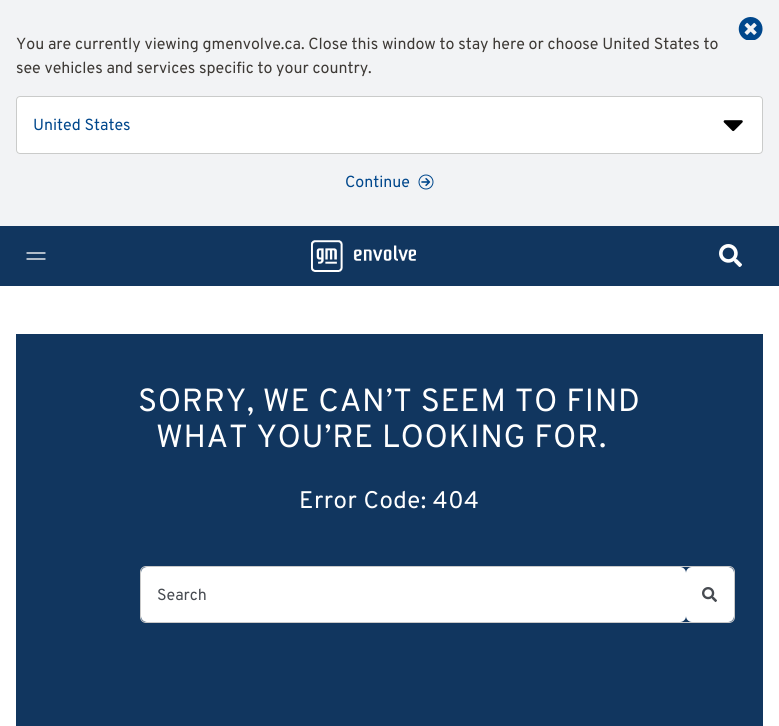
import math
import cairo



def draw_spaced(context, x, y, s, letter, word):
    context.move_to(x, y)
    for ch in s:
        context.show_text(ch)
        context.rel_move_to(letter + word * (ch == ' '), 0)


def rounded_rect(context, x, y, w, h, r):
    context.new_sub_path()
    for i, (u, v) in enumerate([(x + w - r, y + h - r), (x + r, y + h - r), (x + r, y + r), (x + w - r, y + r)]):
        context.arc(u, v, r, i * math.pi / 2, (i + 1) * math.pi / 2)
    context.close_path()


def draw_image(context, path, x, y, w, h):
    context.save()
    context.set_source_surface(cairo.ImageSurface.create_from_png(path), x, y)
    context.rectangle(x, y, w, h)
    context.fill()
    context.restore()


def draw(context):
    context.set_source_rgb(1, 1, 1)
    context.paint()
    context.set_source_rgb(242 / 255, 243 / 255, 245 / 255)
    context.rectangle(0, 0, 779, 226)
    context.fill()
    draw_image(context, "images/1.png", 738, 17, 25, 23)
    context.set_source_rgb(1, 1, 1)
    rounded_rect(context, 16, 96, 747, 58, 4)
    context.fill()
    draw_image(context, "images/2.png", 723, 120, 20, 12)
    rounded_rect(context, 16.5, 96.5, 746, 57, 3.5)
    context.set_source_rgb(202 / 255, 203 / 255, 202 / 255)
    context.set_line_width(1)
    context.stroke()
    draw_image(context, "images/3.png", 418, 174, 16, 16)
    context.set_source_rgb(17 / 255, 54 / 255, 95 / 255)
    context.rectangle(0, 226, 779, 60)
    context.fill()
    context.new_path()
    context.move_to(27, 259)
    context.line_to(45, 259)
    context.move_to(27, 253)
    context.line_to(45, 253)
    context.set_source_rgb(1, 1, 1)
    context.set_line_width(1.3)
    context.set_line_cap(cairo.LineCap.ROUND)
    context.set_line_join(cairo.LineJoin.ROUND)
    context.stroke()
    draw_image(context, "images/4.png", 311, 240, 105, 32)
    draw_image(context, "images/5.png", 719, 244, 23, 23)
    context.set_source_rgb(17 / 255, 54 / 255, 95 / 255)
    context.rectangle(16, 334, 747, 392)
    context.fill()
    rounded_rect(context, 140.5, 566.5, 594, 56, 5.5)
    context.set_source_rgb(201 / 255, 201 / 255, 201 / 255)
    context.set_line_width(1)
    context.set_line_cap(cairo.LineCap.BUTT)
    context.set_line_join(cairo.LineJoin.MITER)
    context.stroke()
    context.set_source_rgb(1, 1, 1)
    rounded_rect(context, 141, 567, 545, 55, 6)
    context.fill()
    rounded_rect(context, 686, 567, 48, 55, 6)
    context.fill()
    draw_image(context, "images/6.png", 702, 587, 15, 16)
    context.select_font_face("Overpass")
    context.set_font_size(16)
    context.set_source_rgb(61 / 255, 57 / 255, 53 / 255)
    context.move_to(16, 49)
    context.show_text("You are currently viewing gmenvolve.ca. Close this window to stay here or choose United States to")
    context.move_to(16, 73)
    context.show_text("see vehicles and services specific to your country.")
    context.set_source_rgb(0, 71 / 255, 140 / 255)
    context.move_to(33, 130)
    context.show_text("United States")
    context.move_to(345, 187)
    context.show_text("Continue")
    context.set_font_size(32)
    context.set_source_rgb(1, 1, 1)
    draw_spaced(context, 138, 411, "SORRY, WE CAN’T SEEM TO FIND", 0.65, 0)
    draw_spaced(context, 156, 447, "WHAT YOU’RE LOOKING FOR.", 0.65, 0)
    context.set_font_size(24)
    draw_spaced(context, 299, 508, "Error Code: 404", 0.5, 0)
    context.set_font_size(16)
    context.set_source_rgb(71 / 255, 75 / 255, 81 / 255)
    context.move_to(157, 600)
    context.show_text("Search")


surface = cairo.ImageSurface(cairo.Format.RGB24, 779, 726)
context = cairo.Context(surface)
options = cairo.FontOptions()
options.set_hint_metrics(cairo.HintMetrics.OFF)
options.set_hint_style(cairo.HintStyle.NONE)
context.set_font_options(options)
context.set_miter_limit(4)
draw(context)
surface.write_to_png("out.png")
